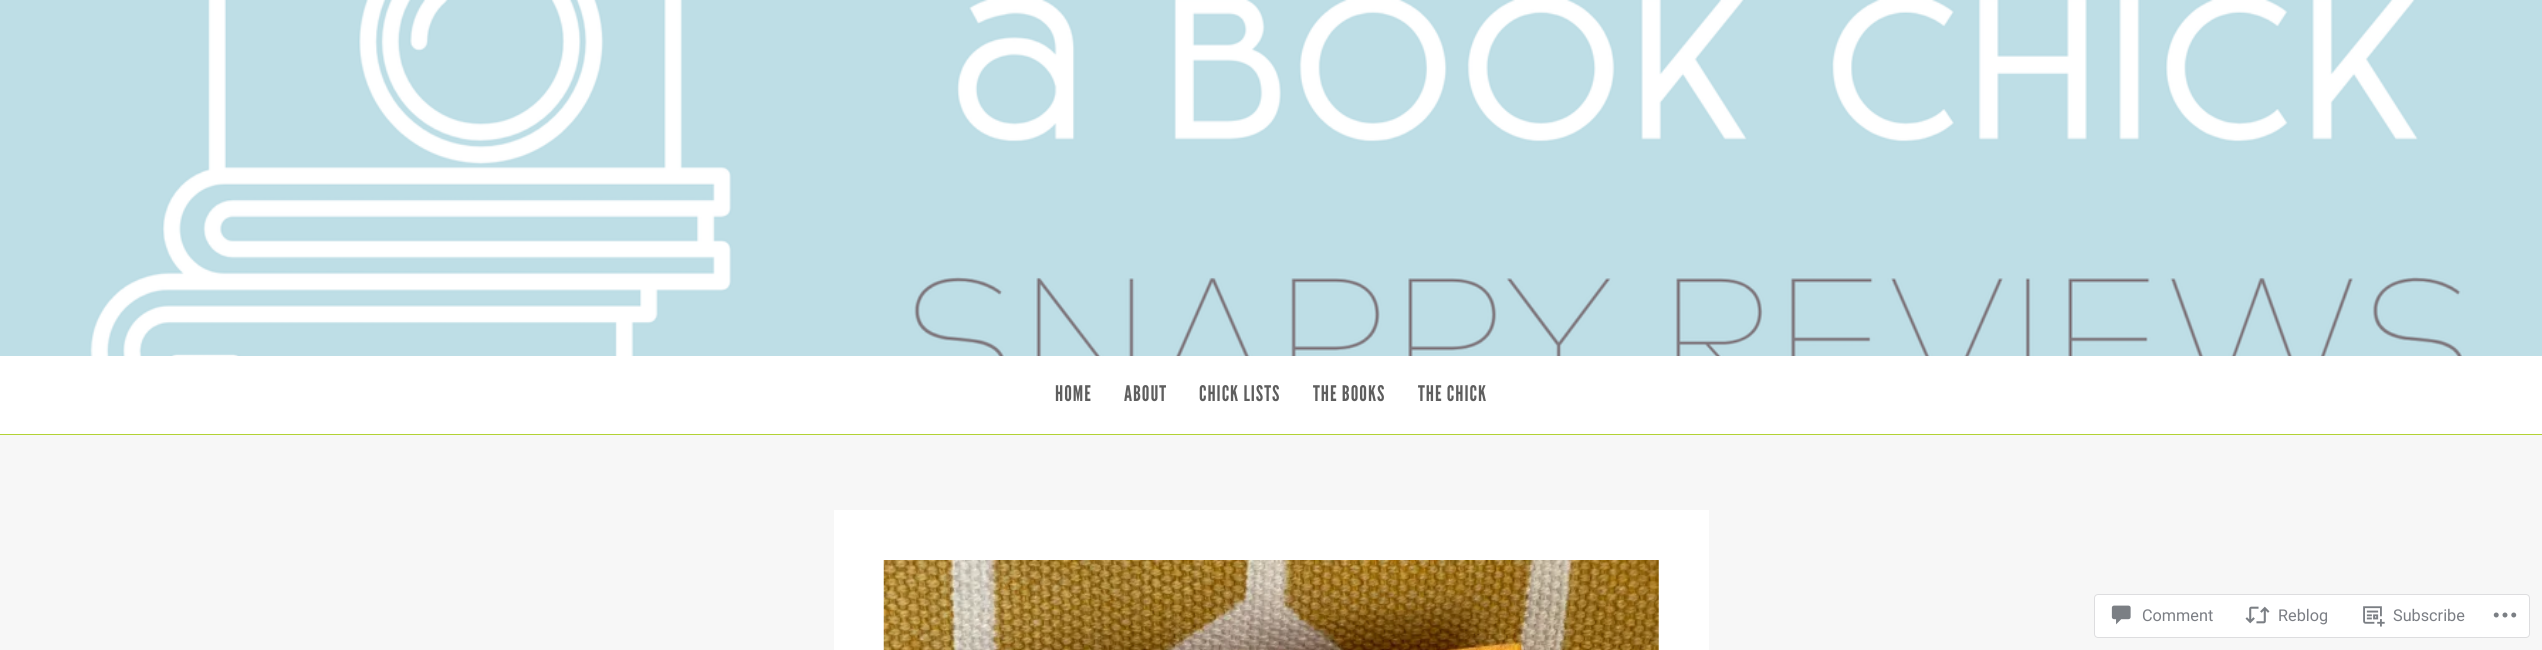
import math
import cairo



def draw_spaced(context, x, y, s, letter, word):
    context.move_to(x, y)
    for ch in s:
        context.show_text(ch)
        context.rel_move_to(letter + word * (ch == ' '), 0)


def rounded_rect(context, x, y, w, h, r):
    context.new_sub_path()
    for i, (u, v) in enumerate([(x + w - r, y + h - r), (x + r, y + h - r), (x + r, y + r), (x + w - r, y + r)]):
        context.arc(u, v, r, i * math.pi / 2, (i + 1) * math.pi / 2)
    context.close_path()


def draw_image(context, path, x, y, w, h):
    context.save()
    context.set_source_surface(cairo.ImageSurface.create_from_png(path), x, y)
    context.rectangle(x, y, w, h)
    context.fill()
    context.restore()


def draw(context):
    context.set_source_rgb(247 / 255, 247 / 255, 247 / 255)
    context.paint()
    draw_image(context, "images/1.png", 0, 0, 2542, 356)
    context.set_source_rgb(1, 1, 1)
    context.rectangle(0, 356, 2542, 78)
    context.fill()
    context.set_source_rgb(178 / 255, 210 / 255, 52 / 255)
    context.rectangle(0, 434, 2542, 1)
    context.fill()
    context.set_source_rgb(1, 1, 1)
    context.rectangle(834, 510, 875, 140)
    context.fill()
    draw_image(context, "images/2.png", 883, 560, 776, 90)
    rounded_rect(context, 2094.5, 594.5, 435, 43, 3.5)
    context.fill_preserve()
    context.set_source_rgb(221 / 255, 221 / 255, 223 / 255)
    context.set_line_width(1)
    context.stroke()
    draw_image(context, "images/3.png", 2111, 605, 20, 20)
    draw_image(context, "images/4.png", 2245, 606, 25, 18)
    draw_image(context, "images/5.png", 2363, 606, 22, 21)
    draw_image(context, "images/6.png", 2493, 612, 24, 6)
    context.select_font_face("League Gothic")
    context.set_font_size(21.5)
    context.set_source_rgb(94 / 255, 94 / 255, 94 / 255)
    draw_spaced(context, 1055, 401, "HOME", 1, 0)
    draw_spaced(context, 1124, 401, "ABOUT", 1, 0)
    draw_spaced(context, 1199, 401, "CHICK LISTS", 1, 0)
    draw_spaced(context, 1313, 401, "THE BOOKS", 1, 0)
    draw_spaced(context, 1418, 401, "THE CHICK", 1, 0)
    context.select_font_face("Roboto")
    context.set_font_size(16.25)
    context.set_source_rgb(123 / 255, 126 / 255, 132 / 255)
    context.move_to(2142, 621)
    context.show_text("Comment")
    context.move_to(2278, 621)
    context.show_text("Reblog")
    context.move_to(2393, 621)
    context.show_text("Subscribe")


surface = cairo.ImageSurface(cairo.Format.RGB24, 2542, 650)
context = cairo.Context(surface)
options = cairo.FontOptions()
options.set_hint_metrics(cairo.HintMetrics.OFF)
options.set_hint_style(cairo.HintStyle.NONE)
context.set_font_options(options)
context.set_miter_limit(4)
draw(context)
surface.write_to_png("out.png")
